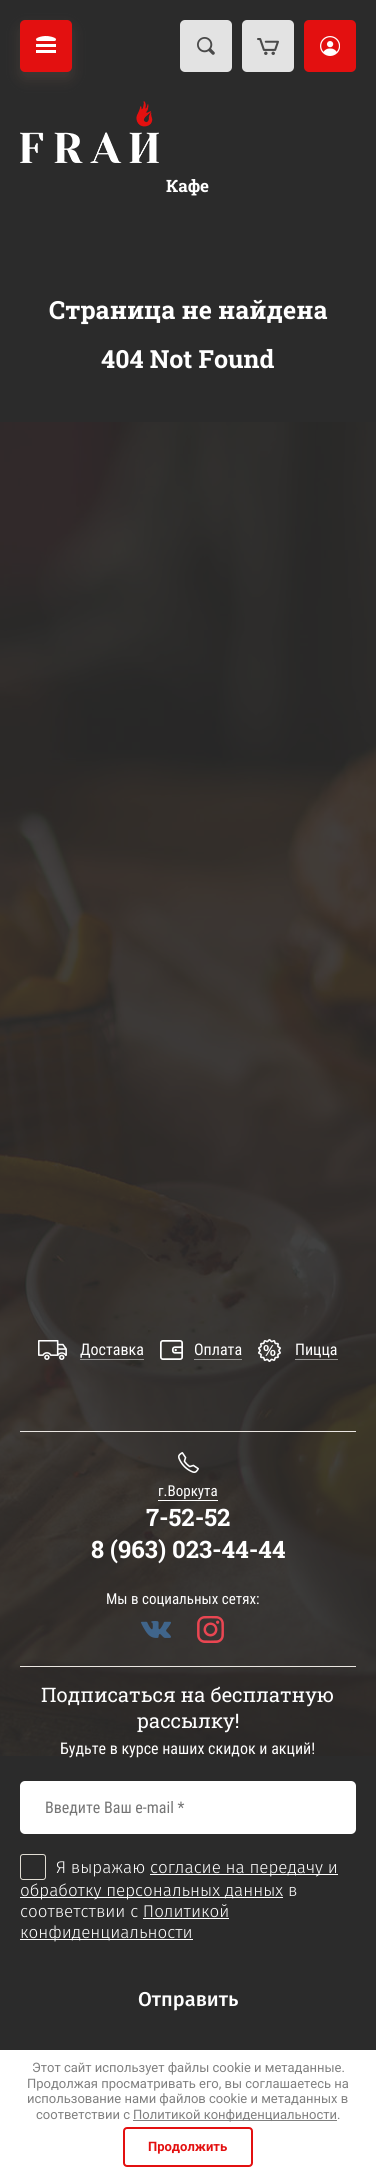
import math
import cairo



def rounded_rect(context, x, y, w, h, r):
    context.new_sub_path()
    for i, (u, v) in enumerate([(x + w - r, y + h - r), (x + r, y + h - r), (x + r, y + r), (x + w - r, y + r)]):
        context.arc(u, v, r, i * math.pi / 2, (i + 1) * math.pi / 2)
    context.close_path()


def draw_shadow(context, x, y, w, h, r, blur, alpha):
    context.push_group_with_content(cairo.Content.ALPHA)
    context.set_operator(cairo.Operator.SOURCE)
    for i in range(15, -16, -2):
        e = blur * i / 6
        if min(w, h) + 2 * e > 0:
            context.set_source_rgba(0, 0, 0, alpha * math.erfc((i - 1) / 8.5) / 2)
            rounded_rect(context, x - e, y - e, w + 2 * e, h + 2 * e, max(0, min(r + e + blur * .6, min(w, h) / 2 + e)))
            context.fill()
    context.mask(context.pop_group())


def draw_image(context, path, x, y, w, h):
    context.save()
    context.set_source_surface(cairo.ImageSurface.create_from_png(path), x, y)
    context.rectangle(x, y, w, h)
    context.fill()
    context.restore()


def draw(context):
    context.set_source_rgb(43 / 255, 43 / 255, 43 / 255)
    context.paint()
    draw_image(context, "images/5.png", 20, 101, 139, 62)
    context.set_source_rgb(119 / 255, 95 / 255, 81 / 255)
    draw_shadow(context, 20, 27, 52, 52, 5, 7.5, 0.27)
    context.set_source_rgb(227 / 255, 16 / 255, 16 / 255)
    rounded_rect(context, 20, 20, 52, 52, 5)
    context.fill()
    context.set_source_rgb(1, 1, 1)
    context.rectangle(36, 44, 20, 3)
    context.fill()
    draw_image(context, "images/1.png", 36, 36, 20, 5)
    context.rectangle(36, 50, 20, 3)
    context.fill()
    context.set_source_rgb(227 / 255, 227 / 255, 227 / 255)
    rounded_rect(context, 180, 20, 52, 52, 5)
    context.fill()
    draw_image(context, "images/2.png", 197, 37, 18, 18)
    rounded_rect(context, 242, 20, 52, 52, 5)
    context.fill()
    draw_image(context, "images/3.png", 257, 38, 22, 17)
    context.set_source_rgb(227 / 255, 16 / 255, 16 / 255)
    rounded_rect(context, 304, 20, 52, 52, 5)
    context.fill()
    draw_image(context, "images/4.png", 320, 36, 20, 20)
    draw_image(context, "images/12.png", 0, 422, 376, 1334)
    context.set_source_rgb(235 / 255, 231 / 255, 226 / 255)
    context.rectangle(20, 1431, 336, 1)
    context.fill()
    draw_image(context, "images/6.png", 38, 1340, 29, 20)
    context.set_source_rgba(1, 1, 1, 0.5)
    context.rectangle(80, 1359, 64, 1)
    context.fill()
    draw_image(context, "images/7.png", 160, 1340, 23, 20)
    context.rectangle(194, 1359, 48, 1)
    context.fill()
    draw_image(context, "images/8.png", 258, 1339, 23, 23)
    context.rectangle(295, 1359, 43, 1)
    context.fill()
    context.set_source_rgb(235 / 255, 231 / 255, 226 / 255)
    context.rectangle(20, 1666, 336, 1)
    context.fill()
    draw_image(context, "images/9.png", 178, 1452, 21, 21)
    context.set_source_rgb(1, 1, 1)
    context.rectangle(158, 1500, 60, 1)
    context.fill()
    draw_image(context, "images/10.png", 141, 1621, 30, 17)
    draw_image(context, "images/11.png", 197, 1616, 27, 27)
    rounded_rect(context, 20, 1781, 336, 53, 5)
    context.fill()
    rounded_rect(context, 20.5, 1854.5, 25, 25, 2.5)
    context.set_source_rgb(225 / 255, 221 / 255, 211 / 255)
    context.set_line_width(1)
    context.stroke()
    context.set_source_rgb(1, 1, 1)
    context.rectangle(150, 1874, 188, 1)
    context.fill()
    context.rectangle(20, 1897, 263, 1)
    context.fill()
    context.rectangle(143, 1918, 86, 1)
    context.fill()
    context.rectangle(20, 1939, 173, 1)
    context.fill()
    context.rectangle(0, 2050, 376, 127)
    context.fill()
    context.set_source_rgb(128 / 255, 128 / 255, 128 / 255)
    context.rectangle(133, 2120, 204, 1)
    context.fill()
    rounded_rect(context, 124, 2128, 128, 38, 3)
    context.set_source_rgb(227 / 255, 16 / 255, 16 / 255)
    context.set_line_width(2)
    context.stroke()
    context.select_font_face("Roboto Slab", cairo.FontSlant.NORMAL, cairo.FontWeight.BOLD)
    context.set_font_size(17)
    context.set_source_rgb(1, 1, 1)
    context.move_to(166, 192)
    context.show_text("Кафе")
    context.set_font_size(25)
    context.move_to(49, 319)
    context.show_text("Страница не найдена")
    context.move_to(101, 368)
    context.show_text("404 Not Found")
    context.select_font_face("Roboto Condensed")
    context.set_font_size(16)
    context.move_to(80, 1355)
    context.show_text("Доставка")
    context.move_to(194, 1355)
    context.show_text("Оплата")
    context.move_to(295, 1355)
    context.show_text("Пицца")
    context.set_font_size(15)
    context.move_to(158, 1496)
    context.show_text("г.Воркута")
    context.select_font_face("Roboto Slab", cairo.FontSlant.NORMAL, cairo.FontWeight.BOLD)
    context.set_font_size(24)
    context.move_to(146, 1526)
    context.show_text("7-52-52")
    context.move_to(91, 1558)
    context.show_text("8 (963) 023-44-44")
    context.select_font_face("Roboto Condensed")
    context.set_font_size(15)
    context.move_to(106, 1604)
    context.show_text("Мы в социальных сетях:")
    context.select_font_face("Roboto Slab")
    context.set_font_size(20)
    context.move_to(41, 1702)
    context.show_text("Подписаться на бесплатную")
    context.move_to(137, 1728)
    context.show_text("рассылку!")
    context.select_font_face("Roboto Condensed")
    context.set_font_size(16)
    context.move_to(60, 1754)
    context.show_text("Будьте в курсе наших скидок и акций!")
    context.set_source_rgb(117 / 255, 117 / 255, 117 / 255)
    context.move_to(45, 1813)
    context.show_text("Введите Ваш e-mail *")
    context.select_font_face("Fira Sans Light")
    context.set_font_size(17)
    context.set_source_rgb(1, 1, 1)
    context.move_to(56, 1873)
    context.show_text("Я выражаю")
    context.move_to(150, 1873)
    context.show_text("согласие на передачу и")
    context.move_to(20, 1896)
    context.show_text("обработку персональных данных в")
    context.move_to(20, 1917)
    context.show_text("соответствии с Политикой")
    context.move_to(20, 1938)
    context.show_text("конфиденциальности")
    context.select_font_face("Fira Sans Medium")
    context.set_font_size(20)
    context.move_to(138, 2006)
    context.show_text("Отправить")
    context.select_font_face("Roboto")
    context.set_font_size(13)
    context.set_source_rgb(128 / 255, 128 / 255, 128 / 255)
    context.move_to(32, 2072)
    context.show_text("Этот сайт использует файлы cookie и метаданные.")
    context.move_to(27, 2088)
    context.show_text("Продолжая просматривать его, вы соглашаетесь на")
    context.move_to(27, 2103)
    context.show_text("использование нами файлов cookie и метаданных в")
    context.move_to(36, 2119)
    context.show_text("соответствии с")
    context.move_to(133, 2119)
    context.show_text("Политикой конфиденциальности.")
    context.select_font_face("Roboto", cairo.FontSlant.NORMAL, cairo.FontWeight.BOLD)
    context.set_source_rgb(227 / 255, 16 / 255, 16 / 255)
    context.move_to(148, 2151)
    context.show_text("Продолжить")


surface = cairo.ImageSurface(cairo.Format.RGB24, 376, 2177)
context = cairo.Context(surface)
options = cairo.FontOptions()
options.set_hint_metrics(cairo.HintMetrics.OFF)
options.set_hint_style(cairo.HintStyle.NONE)
context.set_font_options(options)
context.set_miter_limit(4)
draw(context)
surface.write_to_png("out.png")
